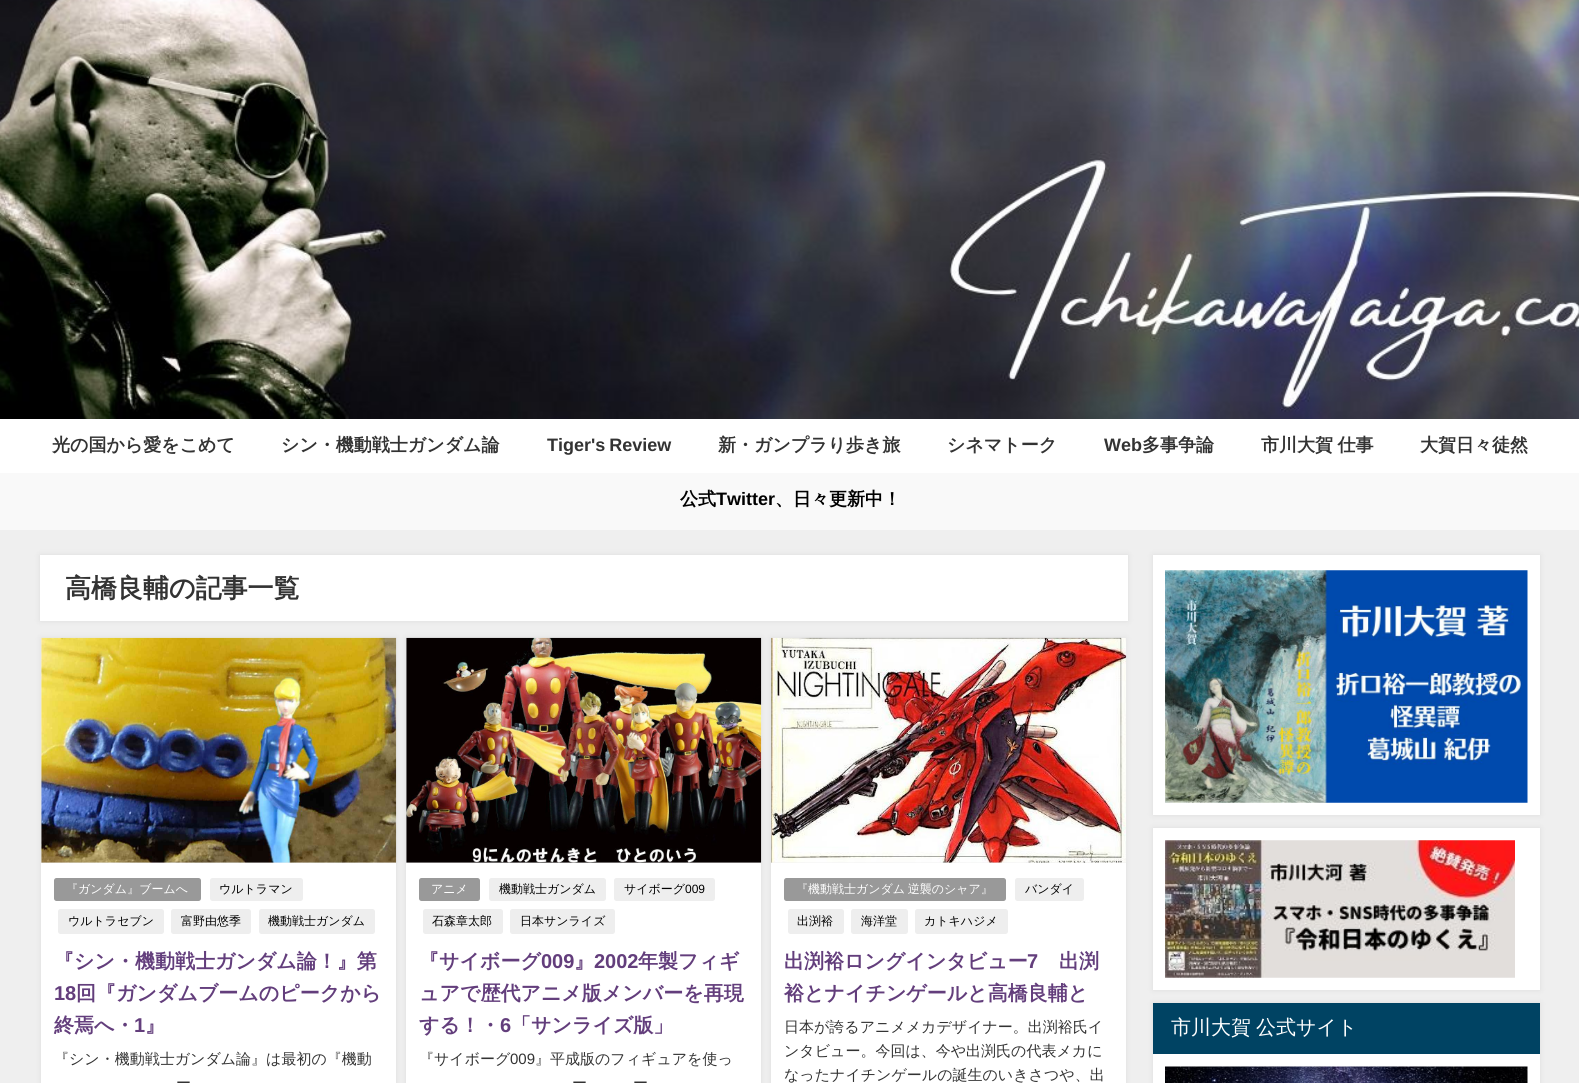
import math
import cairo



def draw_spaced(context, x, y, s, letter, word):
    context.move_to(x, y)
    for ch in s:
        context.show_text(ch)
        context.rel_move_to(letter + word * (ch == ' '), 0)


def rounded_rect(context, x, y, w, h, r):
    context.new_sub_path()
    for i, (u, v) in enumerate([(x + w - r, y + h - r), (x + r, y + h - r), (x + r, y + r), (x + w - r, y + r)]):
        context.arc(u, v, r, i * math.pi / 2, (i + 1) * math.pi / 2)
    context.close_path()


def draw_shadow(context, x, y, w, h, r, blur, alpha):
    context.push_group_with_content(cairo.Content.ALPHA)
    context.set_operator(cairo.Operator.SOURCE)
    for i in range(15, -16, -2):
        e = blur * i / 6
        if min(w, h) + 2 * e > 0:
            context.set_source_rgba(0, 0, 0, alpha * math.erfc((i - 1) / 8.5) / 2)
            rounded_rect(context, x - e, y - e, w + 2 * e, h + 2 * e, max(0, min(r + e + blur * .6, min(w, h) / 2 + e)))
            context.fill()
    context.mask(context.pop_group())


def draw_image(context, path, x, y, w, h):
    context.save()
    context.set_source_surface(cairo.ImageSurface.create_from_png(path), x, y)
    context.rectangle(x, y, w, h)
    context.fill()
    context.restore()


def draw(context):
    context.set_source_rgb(239 / 255, 239 / 255, 239 / 255)
    context.paint()
    draw_image(context, "images/1.png", 0, 0, 1579, 419)
    context.set_source_rgb(1, 1, 1)
    context.rectangle(0, 419, 1579, 54)
    context.fill()
    context.set_source_rgb(249 / 255, 249 / 255, 249 / 255)
    context.rectangle(0, 473, 1579, 57)
    context.fill()
    context.set_source_rgb(150 / 255, 150 / 255, 150 / 255)
    draw_shadow(context, 40, 555, 1088, 66, 0, 3, 0.2)
    context.set_source_rgb(1, 1, 1)
    context.rectangle(40, 555, 1088, 66)
    context.fill()
    context.set_source_rgb(150 / 255, 150 / 255, 150 / 255)
    draw_shadow(context, 41, 638, 355, 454, 0, 3, 0.2)
    context.set_source_rgb(1, 1, 1)
    context.rectangle(41, 863, 355, 220)
    context.fill()
    context.set_source_rgb(238 / 255, 238 / 255, 238 / 255)
    context.rectangle(41, 638, 355, 225)
    context.fill()
    draw_image(context, "images/2.png", 41, 637, 356, 226)
    context.set_source_rgb(153 / 255, 153 / 255, 153 / 255)
    rounded_rect(context, 54, 878, 147, 23, 2.5)
    context.fill()
    context.set_source_rgb(238 / 255, 238 / 255, 238 / 255)
    rounded_rect(context, 210, 878, 93, 23, 2.5)
    context.fill()
    rounded_rect(context, 58, 909, 106, 25, 2.5)
    context.fill()
    rounded_rect(context, 171, 909, 80, 25, 2.5)
    context.fill()
    rounded_rect(context, 259, 909, 116, 25, 2.5)
    context.fill()
    context.set_source_rgb(150 / 255, 150 / 255, 150 / 255)
    draw_shadow(context, 406, 638, 355, 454, 0, 3, 0.2)
    context.set_source_rgb(1, 1, 1)
    context.rectangle(406, 863, 355, 220)
    context.fill()
    context.set_source_rgb(238 / 255, 238 / 255, 238 / 255)
    context.rectangle(406, 638, 355, 225)
    context.fill()
    draw_image(context, "images/3.png", 406, 637, 356, 226)
    rounded_rect(context, 489, 878, 117, 23, 2.5)
    context.fill()
    rounded_rect(context, 614, 878, 101, 23, 2.5)
    context.fill()
    rounded_rect(context, 423, 909, 80, 25, 2.5)
    context.fill()
    rounded_rect(context, 510, 909, 105, 25, 2.5)
    context.fill()
    context.set_source_rgb(153 / 255, 153 / 255, 153 / 255)
    rounded_rect(context, 419, 878, 61, 23, 2.5)
    context.fill()
    context.set_source_rgb(150 / 255, 150 / 255, 150 / 255)
    draw_shadow(context, 771, 638, 355, 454, 0, 3, 0.2)
    context.set_source_rgb(1, 1, 1)
    context.rectangle(771, 863, 355, 220)
    context.fill()
    context.set_source_rgb(238 / 255, 238 / 255, 238 / 255)
    context.rectangle(771, 638, 355, 225)
    context.fill()
    draw_image(context, "images/4.png", 771, 637, 356, 226)
    context.set_source_rgb(153 / 255, 153 / 255, 153 / 255)
    rounded_rect(context, 784, 878, 222, 23, 2.5)
    context.fill()
    context.set_source_rgb(238 / 255, 238 / 255, 238 / 255)
    rounded_rect(context, 1015, 878, 69, 23, 2.5)
    context.fill()
    rounded_rect(context, 788, 909, 56, 25, 2.5)
    context.fill()
    rounded_rect(context, 851, 909, 57, 25, 2.5)
    context.fill()
    rounded_rect(context, 915, 909, 93, 25, 2.5)
    context.fill()
    context.set_source_rgb(150 / 255, 150 / 255, 150 / 255)
    draw_shadow(context, 1153, 555, 387, 260, 0, 3, 0.2)
    context.set_source_rgb(1, 1, 1)
    context.rectangle(1153, 555, 387, 260)
    context.fill()
    draw_image(context, "images/5.png", 1165, 570, 363, 233)
    context.set_source_rgb(150 / 255, 150 / 255, 150 / 255)
    draw_shadow(context, 1153, 828, 387, 162, 0, 3, 0.2)
    context.set_source_rgb(1, 1, 1)
    context.rectangle(1153, 828, 387, 162)
    context.fill()
    draw_image(context, "images/6.png", 1165, 840, 350, 138)
    context.set_source_rgb(150 / 255, 150 / 255, 150 / 255)
    draw_shadow(context, 1153, 1003, 387, 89, 0, 3, 0.2)
    context.set_source_rgb(1, 1, 1)
    context.rectangle(1153, 1054, 387, 29)
    context.fill()
    context.set_source_rgb(0, 67 / 255, 99 / 255)
    context.rectangle(1153, 1003, 387, 51)
    context.fill()
    draw_image(context, "images/7.png", 1165, 1066, 363, 17)
    context.select_font_face("WenQuanYi Zen Hei", cairo.FontSlant.NORMAL, cairo.FontWeight.BOLD)
    context.set_font_size(18)
    context.set_source_rgb(51 / 255, 51 / 255, 51 / 255)
    context.move_to(52, 451)
    context.show_text("光の国から愛をこめて")
    context.move_to(281, 451)
    context.show_text("シン・機動戦士ガンダム論")
    context.select_font_face("Liberation Sans", cairo.FontSlant.NORMAL, cairo.FontWeight.BOLD)
    draw_spaced(context, 547, 451, "Tiger's Review", 0, -1)
    context.select_font_face("WenQuanYi Zen Hei", cairo.FontSlant.NORMAL, cairo.FontWeight.BOLD)
    context.move_to(718, 451)
    context.show_text("新・ガンプラり歩き旅")
    context.move_to(947, 451)
    context.show_text("シネマトーク")
    context.select_font_face("Liberation Sans", cairo.FontSlant.NORMAL, cairo.FontWeight.BOLD)
    context.move_to(1104, 451)
    context.show_text("Web")
    context.select_font_face("WenQuanYi Zen Hei", cairo.FontSlant.NORMAL, cairo.FontWeight.BOLD)
    context.move_to(1142, 451)
    context.show_text("多事争論")
    draw_spaced(context, 1261, 451, "市川大賀 仕事", 0, -1)
    context.move_to(1420, 451)
    context.show_text("大賀日々徒然")
    context.set_source_rgb(0, 0, 0)
    context.move_to(680, 505)
    context.show_text("公式")
    context.select_font_face("Liberation Sans", cairo.FontSlant.NORMAL, cairo.FontWeight.BOLD)
    context.move_to(716, 505)
    context.show_text("Twitter")
    context.select_font_face("WenQuanYi Zen Hei", cairo.FontSlant.NORMAL, cairo.FontWeight.BOLD)
    context.move_to(775, 505)
    context.show_text("、日々更新中！")
    context.set_font_size(26)
    context.set_source_rgb(51 / 255, 51 / 255, 51 / 255)
    context.move_to(65, 597)
    context.show_text("高橋良輔の記事一覧")
    context.select_font_face("WenQuanYi Zen Hei Medium")
    context.set_font_size(12)
    context.set_source_rgb(1, 1, 1)
    context.move_to(66, 893)
    context.show_text("『ガンダム』ブームへ")
    context.set_source_rgb(0, 0, 0)
    context.move_to(219, 893)
    context.show_text("ウルトラマン")
    context.move_to(68, 925)
    context.show_text("ウルトラセブン")
    context.move_to(181, 925)
    context.show_text("富野由悠季")
    context.move_to(268, 925)
    context.show_text("機動戦士ガンダム")
    context.select_font_face("WenQuanYi Zen Hei", cairo.FontSlant.NORMAL, cairo.FontWeight.BOLD)
    context.set_font_size(20)
    context.set_source_rgb(99 / 255, 62 / 255, 124 / 255)
    context.move_to(54, 968)
    context.show_text("『シン・機動戦士ガンダム論！』第")
    context.select_font_face("Liberation Sans", cairo.FontSlant.NORMAL, cairo.FontWeight.BOLD)
    context.move_to(54, 1000)
    context.show_text("18")
    context.select_font_face("WenQuanYi Zen Hei", cairo.FontSlant.NORMAL, cairo.FontWeight.BOLD)
    context.move_to(76, 1000)
    context.show_text("回『ガンダムブームのピークから")
    context.move_to(54, 1032)
    context.show_text("終焉へ・")
    context.select_font_face("Liberation Sans", cairo.FontSlant.NORMAL, cairo.FontWeight.BOLD)
    context.move_to(134, 1032)
    context.show_text("1")
    context.select_font_face("WenQuanYi Zen Hei", cairo.FontSlant.NORMAL, cairo.FontWeight.BOLD)
    context.move_to(145, 1032)
    context.show_text("』")
    context.select_font_face("WenQuanYi Zen Hei Medium")
    context.set_font_size(15)
    context.set_source_rgb(51 / 255, 51 / 255, 51 / 255)
    context.move_to(54, 1064)
    context.show_text("『シン・機動戦士ガンダム論』は最初の『機動")
    context.move_to(176, 1088)
    context.show_text("ー")
    context.set_font_size(12)
    context.set_source_rgb(0, 0, 0)
    context.move_to(499, 893)
    context.show_text("機動戦士ガンダム")
    context.move_to(624, 893)
    context.show_text("サイボーグ")
    context.select_font_face("Liberation Sans")
    context.move_to(685, 893)
    context.show_text("009")
    context.select_font_face("WenQuanYi Zen Hei Medium")
    context.move_to(432, 925)
    context.show_text("石森章太郎")
    context.move_to(520, 925)
    context.show_text("日本サンライズ")
    context.set_source_rgb(1, 1, 1)
    context.move_to(431, 893)
    context.show_text("アニメ")
    context.select_font_face("WenQuanYi Zen Hei", cairo.FontSlant.NORMAL, cairo.FontWeight.BOLD)
    context.set_font_size(20)
    context.set_source_rgb(99 / 255, 62 / 255, 124 / 255)
    context.move_to(419, 968)
    context.show_text("『サイボーグ")
    context.select_font_face("Liberation Sans", cairo.FontSlant.NORMAL, cairo.FontWeight.BOLD)
    context.move_to(541, 968)
    context.show_text("009")
    context.select_font_face("WenQuanYi Zen Hei", cairo.FontSlant.NORMAL, cairo.FontWeight.BOLD)
    context.move_to(574, 968)
    context.show_text("』")
    context.select_font_face("Liberation Sans", cairo.FontSlant.NORMAL, cairo.FontWeight.BOLD)
    context.move_to(594, 968)
    context.show_text("2002")
    context.select_font_face("WenQuanYi Zen Hei", cairo.FontSlant.NORMAL, cairo.FontWeight.BOLD)
    context.move_to(638, 968)
    context.show_text("年製フィギ")
    context.move_to(419, 1000)
    context.show_text("ュアで歴代アニメ版メンバーを再現")
    context.move_to(419, 1032)
    context.show_text("する！・")
    context.select_font_face("Liberation Sans", cairo.FontSlant.NORMAL, cairo.FontWeight.BOLD)
    context.move_to(500, 1032)
    context.show_text("6")
    context.select_font_face("WenQuanYi Zen Hei", cairo.FontSlant.NORMAL, cairo.FontWeight.BOLD)
    context.move_to(511, 1032)
    context.show_text("「サンライズ版」")
    context.select_font_face("WenQuanYi Zen Hei Medium")
    context.set_font_size(15)
    context.set_source_rgb(51 / 255, 51 / 255, 51 / 255)
    context.move_to(419, 1064)
    context.show_text("『サイボーグ")
    context.select_font_face("Liberation Sans")
    context.move_to(510, 1064)
    context.show_text("009")
    context.select_font_face("WenQuanYi Zen Hei Medium")
    context.move_to(535, 1064)
    context.show_text("』平成版のフィギュアを使っ")
    context.move_to(572, 1088)
    context.show_text("ー")
    context.move_to(633, 1088)
    context.show_text("ー")
    context.set_font_size(12)
    context.set_source_rgb(1, 1, 1)
    draw_spaced(context, 796, 893, "『機動戦士ガンダム 逆襲のシャア』", 0, -1)
    context.set_source_rgb(0, 0, 0)
    context.move_to(1025, 893)
    context.show_text("バンダイ")
    context.move_to(797, 925)
    context.show_text("出渕裕")
    context.move_to(861, 925)
    context.show_text("海洋堂")
    context.move_to(924, 925)
    context.show_text("カトキハジメ")
    context.select_font_face("WenQuanYi Zen Hei", cairo.FontSlant.NORMAL, cairo.FontWeight.BOLD)
    context.set_font_size(20)
    context.set_source_rgb(99 / 255, 62 / 255, 124 / 255)
    context.move_to(784, 968)
    context.show_text("出渕裕ロングインタビュー")
    context.select_font_face("Liberation Sans", cairo.FontSlant.NORMAL, cairo.FontWeight.BOLD)
    context.move_to(1027, 968)
    context.show_text("7")
    context.select_font_face("WenQuanYi Zen Hei", cairo.FontSlant.NORMAL, cairo.FontWeight.BOLD)
    context.move_to(1059, 968)
    context.show_text("出渕")
    context.move_to(784, 1000)
    context.show_text("裕とナイチンゲールと高橋良輔と")
    context.select_font_face("WenQuanYi Zen Hei Medium")
    context.set_font_size(15)
    context.set_source_rgb(51 / 255, 51 / 255, 51 / 255)
    context.move_to(784, 1032)
    context.show_text("日本が誇るアニメメカデザイナー。出渕裕氏イ")
    context.move_to(784, 1056)
    context.show_text("ンタビュー。今回は、今や出渕氏の代表メカに")
    context.move_to(784, 1080)
    context.show_text("なったナイチンゲールの誕生のいきさつや、出")
    context.set_font_size(20)
    context.set_source_rgb(1, 1, 1)
    draw_spaced(context, 1171, 1034, "市川大賀 公式サイト", 0, -1)


surface = cairo.ImageSurface(cairo.Format.RGB24, 1579, 1083)
context = cairo.Context(surface)
options = cairo.FontOptions()
options.set_hint_metrics(cairo.HintMetrics.OFF)
options.set_hint_style(cairo.HintStyle.NONE)
context.set_font_options(options)
context.set_miter_limit(4)
draw(context)
surface.write_to_png("out.png")
